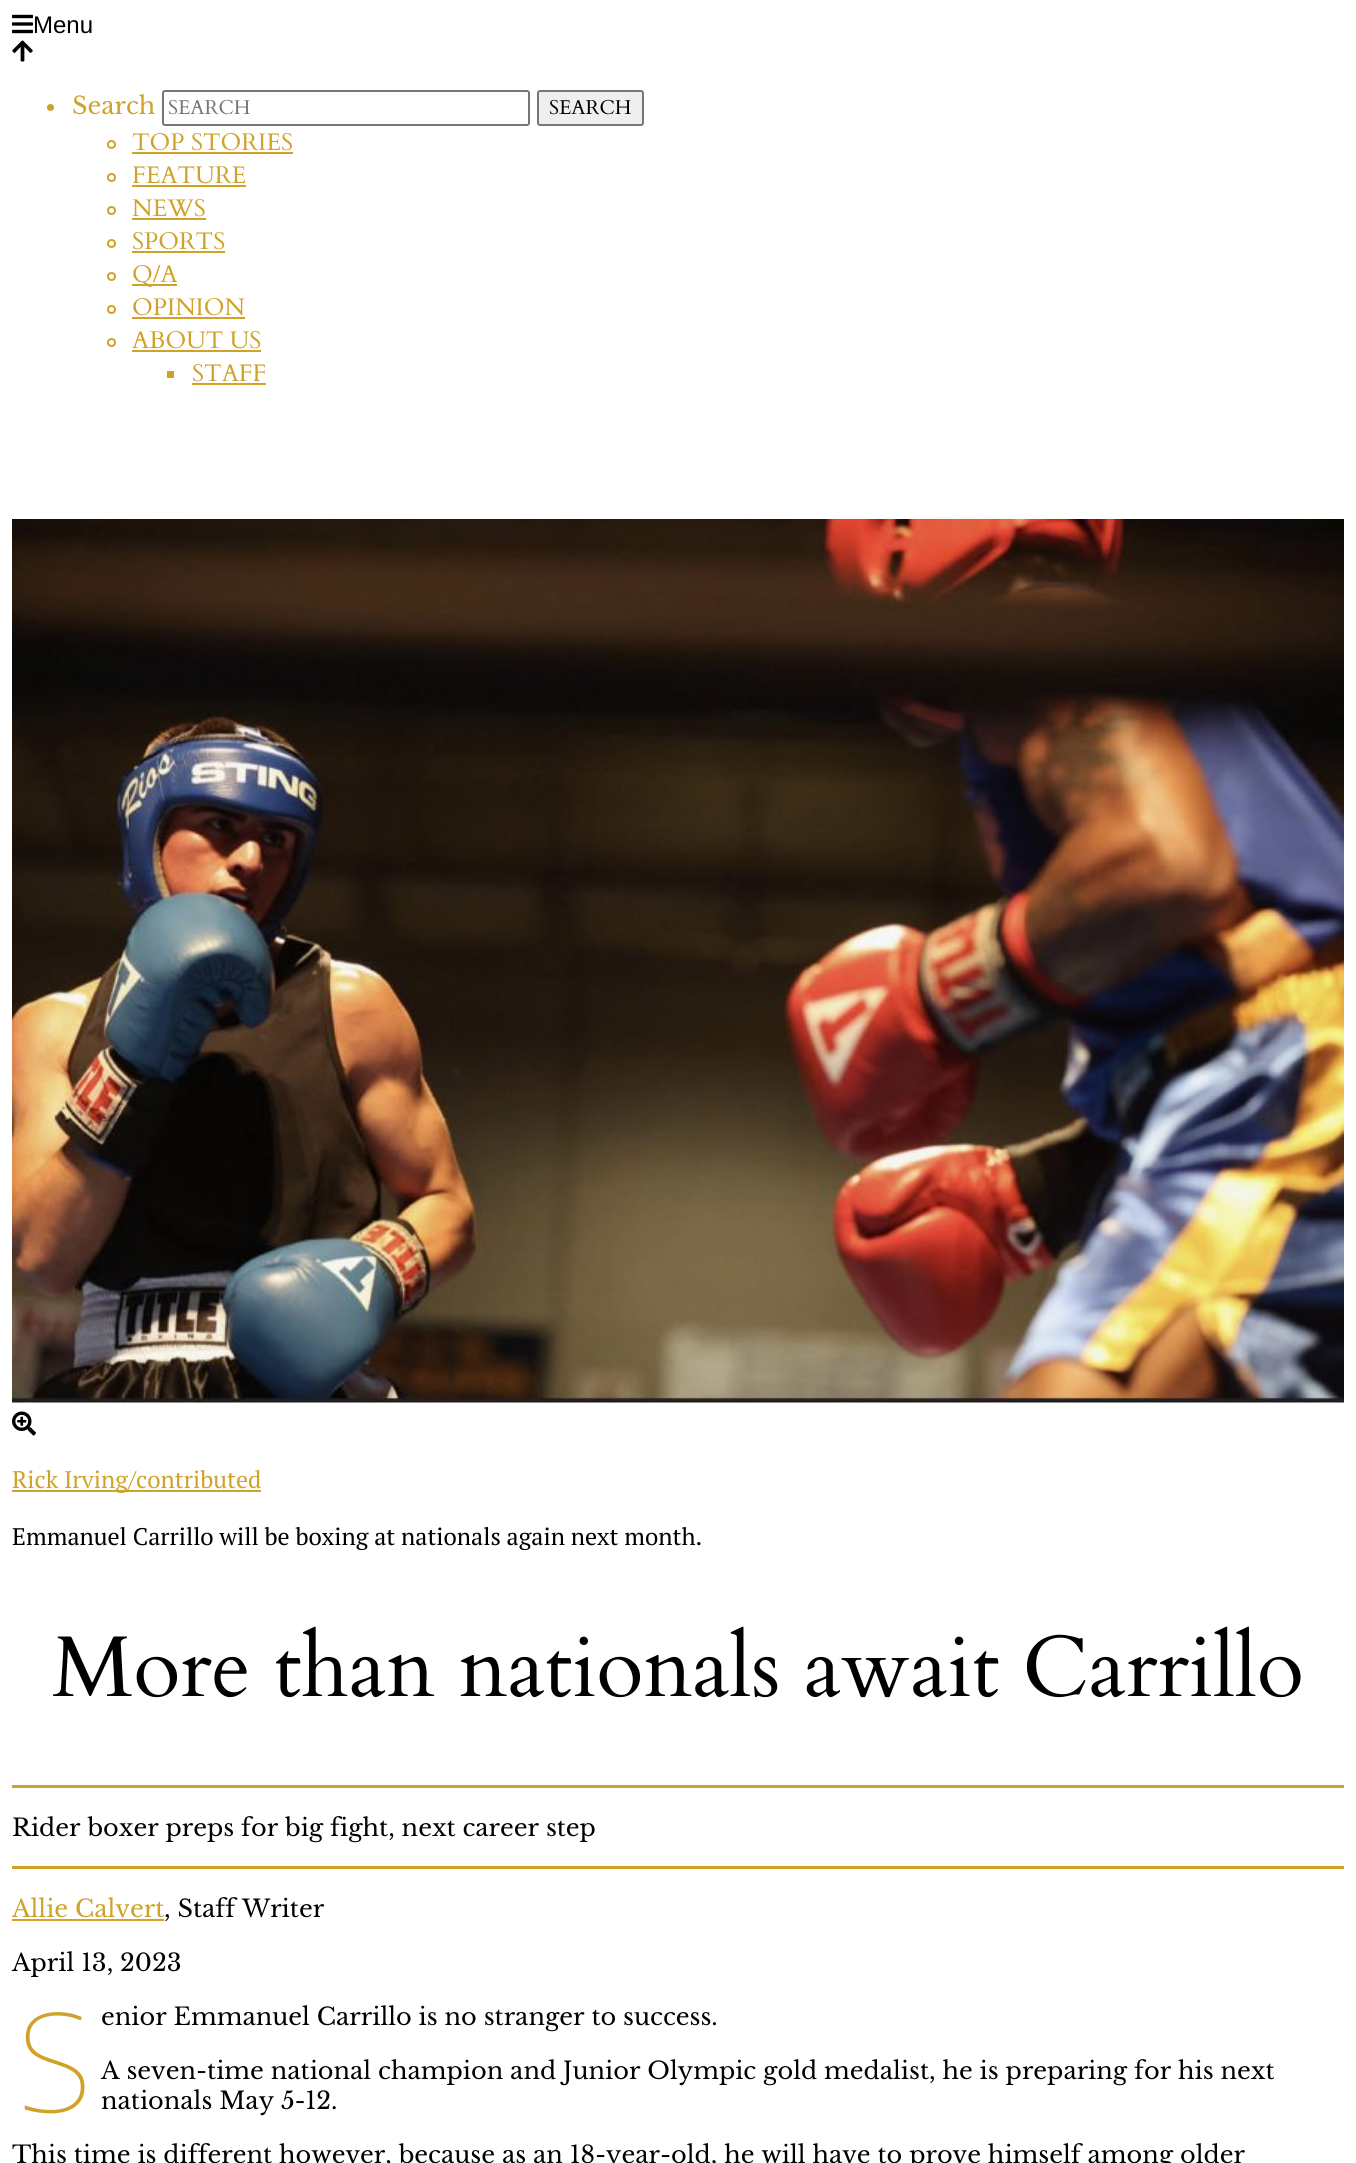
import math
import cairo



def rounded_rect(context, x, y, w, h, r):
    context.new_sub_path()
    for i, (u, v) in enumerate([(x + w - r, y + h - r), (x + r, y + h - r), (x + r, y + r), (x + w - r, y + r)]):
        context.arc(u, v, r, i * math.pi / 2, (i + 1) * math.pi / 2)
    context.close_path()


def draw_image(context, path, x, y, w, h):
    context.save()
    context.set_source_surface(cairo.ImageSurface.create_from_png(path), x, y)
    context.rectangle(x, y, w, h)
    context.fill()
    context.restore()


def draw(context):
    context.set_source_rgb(1, 1, 1)
    context.paint()
    draw_image(context, "images/1.png", 12, 14, 21, 20)
    draw_image(context, "images/2.png", 12, 40, 21, 22)
    context.set_source_rgb(207 / 255, 162 / 255, 41 / 255)
    context.arc(50.5, 107.5, 3.5, 0, 2 * math.pi)
    context.fill()
    rounded_rect(context, 163, 91, 366, 34, 2)
    context.set_source_rgb(118 / 255, 118 / 255, 118 / 255)
    context.stroke()
    context.set_source_rgb(239 / 255, 239 / 255, 239 / 255)
    rounded_rect(context, 538, 91, 105, 34, 2)
    context.fill_preserve()
    context.set_source_rgb(118 / 255, 118 / 255, 118 / 255)
    context.stroke()
    context.arc(111.5, 144.5, 3.5, 0, 2 * math.pi)
    context.set_source_rgb(207 / 255, 162 / 255, 41 / 255)
    context.stroke()
    context.rectangle(132, 152, 161, 2)
    context.fill()
    context.arc(111.5, 177.5, 3.5, 0, 2 * math.pi)
    context.stroke()
    context.rectangle(132, 185, 114, 2)
    context.fill()
    context.arc(111.5, 210.5, 3.5, 0, 2 * math.pi)
    context.stroke()
    context.rectangle(132, 218, 74, 2)
    context.fill()
    context.arc(111.5, 243.5, 3.5, 0, 2 * math.pi)
    context.stroke()
    context.rectangle(132, 251, 93, 2)
    context.fill()
    context.arc(111.5, 276.5, 3.5, 0, 2 * math.pi)
    context.stroke()
    context.rectangle(132, 284, 45, 2)
    context.fill()
    context.arc(111.5, 309.5, 3.5, 0, 2 * math.pi)
    context.stroke()
    context.rectangle(132, 317, 113, 2)
    context.fill()
    context.arc(111.5, 342.5, 3.5, 0, 2 * math.pi)
    context.stroke()
    context.rectangle(132, 350, 129, 2)
    context.fill()
    context.rectangle(167, 371, 7, 7)
    context.fill()
    context.rectangle(192, 383, 74, 2)
    context.fill()
    draw_image(context, "images/3.png", 12, 519, 1332, 884)
    draw_image(context, "images/4.png", 12, 1411, 24, 25)
    context.rectangle(12, 1490, 249, 2)
    context.fill()
    context.rectangle(12, 1785, 1332, 3)
    context.fill()
    context.rectangle(12, 1866, 1332, 3)
    context.fill()
    context.rectangle(12, 1919, 152, 2)
    context.fill()
    context.select_font_face("Liberation Sans")
    context.set_font_size(24)
    context.set_source_rgb(0, 0, 0)
    context.move_to(33, 33)
    context.show_text("Menu")
    context.select_font_face("Libre Baskerville")
    context.set_source_rgb(207 / 255, 162 / 255, 41 / 255)
    context.move_to(72, 114)
    context.show_text("Search")
    context.select_font_face("Cardo")
    context.set_font_size(20)
    context.set_source_rgb(117 / 255, 117 / 255, 117 / 255)
    context.move_to(168, 114)
    context.show_text("SEARCH")
    context.set_source_rgb(0, 0, 0)
    context.move_to(549, 114)
    context.show_text("SEARCH")
    context.set_font_size(24)
    context.set_source_rgb(207 / 255, 162 / 255, 41 / 255)
    context.move_to(132, 150)
    context.show_text("TOP STORIES")
    context.move_to(132, 183)
    context.show_text("FEATURE")
    context.move_to(132, 216)
    context.show_text("NEWS")
    context.move_to(132, 249)
    context.show_text("SPORTS")
    context.move_to(132, 282)
    context.show_text("Q/A")
    context.move_to(132, 315)
    context.show_text("OPINION")
    context.move_to(132, 348)
    context.show_text("ABOUT US")
    context.move_to(192, 381)
    context.show_text("STAFF")
    context.select_font_face("PT Serif")
    context.move_to(12, 1488)
    context.show_text("Rick Irving/contributed")
    context.set_source_rgb(0, 0, 0)
    context.move_to(12, 1545)
    context.show_text("Emmanuel Carrillo will be boxing at nationals again next month.")
    context.select_font_face("Cardo")
    context.set_font_size(86.4)
    context.move_to(52, 1696)
    context.show_text("More than nationals await Carrillo")
    context.select_font_face("Libre Baskerville")
    context.set_font_size(24)
    context.move_to(12, 1836)
    context.show_text("Rider boxer preps for big fight, next career step")
    context.set_source_rgb(207 / 255, 162 / 255, 41 / 255)
    context.move_to(12, 1917)
    context.show_text("Allie Calvert")
    context.set_source_rgb(0, 0, 0)
    context.move_to(164, 1917)
    context.show_text(", Staff Writer")
    context.move_to(12, 1971)
    context.show_text("April 13, 2023")
    context.select_font_face("Noto Sans Thin")
    context.set_font_size(138)
    context.set_source_rgb(207 / 255, 162 / 255, 41 / 255)
    context.move_to(17, 2112)
    context.show_text("S")
    context.select_font_face("Libre Baskerville")
    context.set_font_size(24)
    context.set_source_rgb(0, 0, 0)
    context.move_to(101, 2025)
    context.show_text("enior Emmanuel Carrillo is no stranger to success.")
    context.move_to(101, 2079)
    context.show_text("A seven-time national champion and Junior Olympic gold medalist, he is preparing for his next")
    context.move_to(101, 2109)
    context.show_text("nationals May 5-12.")
    context.move_to(12, 2163)
    context.show_text("This time is different however, because as an 18-year-old, he will have to prove himself among older")


surface = cairo.ImageSurface(cairo.Format.RGB24, 1356, 2163)
context = cairo.Context(surface)
options = cairo.FontOptions()
options.set_hint_metrics(cairo.HintMetrics.OFF)
options.set_hint_style(cairo.HintStyle.NONE)
context.set_font_options(options)
context.set_miter_limit(4)
draw(context)
surface.write_to_png("out.png")
